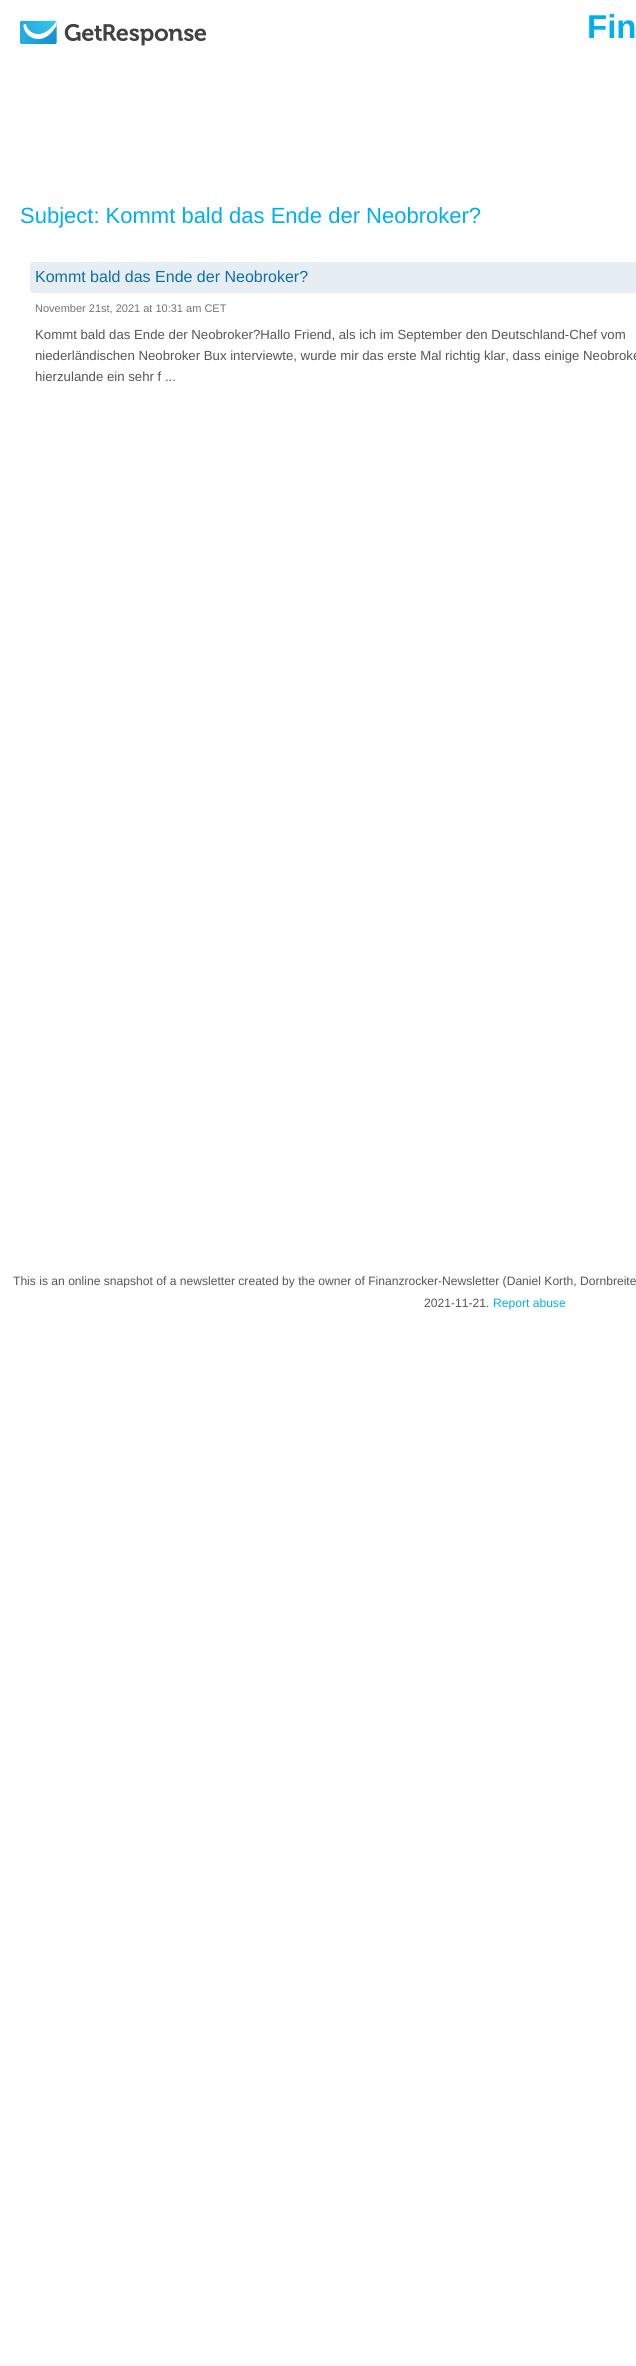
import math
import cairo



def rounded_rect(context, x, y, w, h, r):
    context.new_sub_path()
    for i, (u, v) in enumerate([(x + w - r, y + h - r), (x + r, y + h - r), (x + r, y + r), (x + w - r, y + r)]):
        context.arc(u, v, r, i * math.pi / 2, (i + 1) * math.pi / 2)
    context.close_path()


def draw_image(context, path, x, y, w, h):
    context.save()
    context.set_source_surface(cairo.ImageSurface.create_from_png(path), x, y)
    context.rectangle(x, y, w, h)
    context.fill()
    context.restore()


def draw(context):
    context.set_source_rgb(1, 1, 1)
    context.paint()
    draw_image(context, "images/1.png", 20, 20, 186, 26)
    context.set_source_rgb(230 / 255, 238 / 255, 244 / 255)
    rounded_rect(context, 30, 262, 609, 31, 3)
    context.fill()
    context.select_font_face("Liberation Sans", cairo.FontSlant.NORMAL, cairo.FontWeight.BOLD)
    context.set_font_size(33)
    context.set_source_rgb(0, 175 / 255, 236 / 255)
    context.move_to(587, 38)
    context.show_text("Fin")
    context.select_font_face("Liberation Sans")
    context.set_font_size(22)
    context.move_to(20, 223)
    context.show_text("Subject: Kommt bald das Ende der Neobroker?")
    context.set_font_size(16)
    context.set_source_rgb(15 / 255, 108 / 255, 170 / 255)
    context.move_to(35, 282)
    context.show_text("Kommt bald das Ende der Neobroker?")
    context.set_font_size(11)
    context.set_source_rgb(114 / 255, 114 / 255, 114 / 255)
    context.move_to(35, 312)
    context.show_text("November 21st, 2021 at 10:31 am CET")
    context.set_font_size(13.2)
    context.set_source_rgb(85 / 255, 85 / 255, 85 / 255)
    context.move_to(35, 339)
    context.show_text("Kommt bald das Ende der Neobroker?Hallo Friend, als ich im September den Deutschland-Chef vom")
    context.move_to(35, 360)
    context.show_text("niederländischen Neobroker Bux interviewte, wurde mir das erste Mal richtig klar, dass einige Neobroke")
    context.move_to(35, 381)
    context.show_text("hierzulande ein sehr f ...")
    context.set_font_size(12.1)
    context.move_to(13, 1285)
    context.show_text("This is an online snapshot of a newsletter created by the owner of Finanzrocker-Newsletter (Daniel Korth, Dornbreite")
    context.move_to(424, 1307)
    context.show_text("2021-11-21.")
    context.set_source_rgb(0, 175 / 255, 236 / 255)
    context.move_to(493, 1307)
    context.show_text("Report abuse")


surface = cairo.ImageSurface(cairo.Format.RGB24, 636, 2366)
context = cairo.Context(surface)
options = cairo.FontOptions()
options.set_hint_metrics(cairo.HintMetrics.OFF)
options.set_hint_style(cairo.HintStyle.NONE)
context.set_font_options(options)
context.set_miter_limit(4)
draw(context)
surface.write_to_png("out.png")
